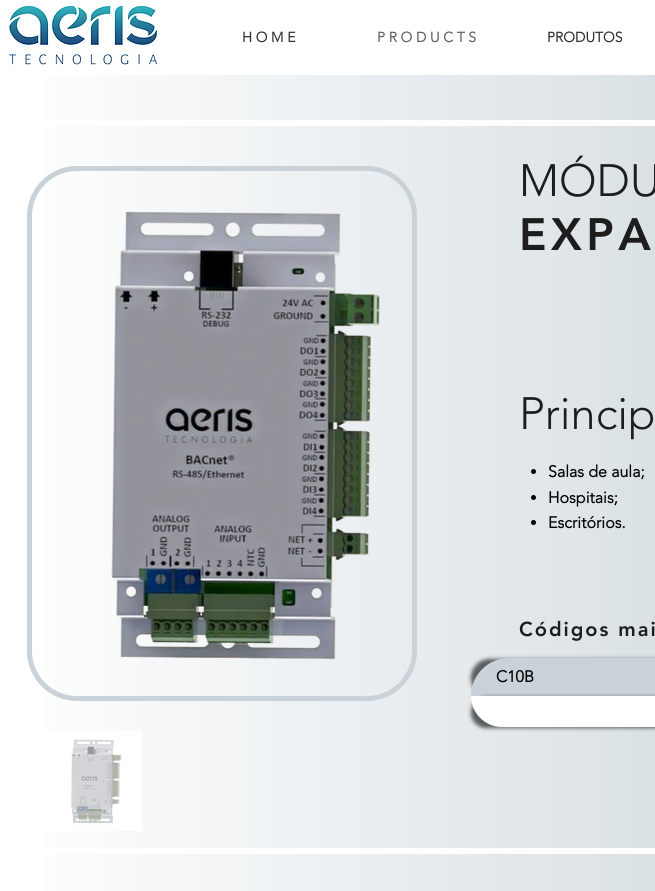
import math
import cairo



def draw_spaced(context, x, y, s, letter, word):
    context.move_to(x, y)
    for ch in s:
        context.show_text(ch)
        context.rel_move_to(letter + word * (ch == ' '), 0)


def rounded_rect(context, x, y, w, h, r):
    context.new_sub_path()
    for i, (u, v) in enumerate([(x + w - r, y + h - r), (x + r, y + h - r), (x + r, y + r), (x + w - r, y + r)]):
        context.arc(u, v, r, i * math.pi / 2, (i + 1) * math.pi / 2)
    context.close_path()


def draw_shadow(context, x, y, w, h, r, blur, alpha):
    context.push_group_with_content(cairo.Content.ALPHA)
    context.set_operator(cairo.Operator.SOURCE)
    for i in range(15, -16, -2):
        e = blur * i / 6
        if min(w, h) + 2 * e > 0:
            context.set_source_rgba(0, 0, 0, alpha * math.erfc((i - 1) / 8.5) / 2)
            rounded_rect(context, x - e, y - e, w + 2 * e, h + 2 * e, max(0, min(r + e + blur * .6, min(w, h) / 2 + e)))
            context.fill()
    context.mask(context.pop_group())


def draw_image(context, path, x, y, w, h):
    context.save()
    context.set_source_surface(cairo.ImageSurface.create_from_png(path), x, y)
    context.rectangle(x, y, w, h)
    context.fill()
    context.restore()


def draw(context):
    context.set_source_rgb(1, 1, 1)
    context.paint()
    draw_image(context, "images/1.png", 9, 5, 148, 60)
    gradient = cairo.LinearGradient(0, 726, 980, 726)
    gradient.add_color_stop_rgba(0, 1, 1, 1, 1)
    gradient.add_color_stop_rgba(1, 200 / 255, 210 / 255, 216 / 255, 1)
    context.set_source(gradient)
    context.rectangle(45, 75, 610, 816)
    context.fill()
    context.set_source_rgb(1, 1, 1)
    context.rectangle(45, 120, 610, 6)
    context.fill()
    rounded_rect(context, 29.5, 168.5, 385, 530, 47.5)
    context.set_source_rgb(200 / 255, 210 / 255, 216 / 255)
    context.set_line_width(5)
    context.stroke()
    draw_image(context, "images/2.png", 111, 211, 269, 448)
    context.set_source_rgb(1, 1, 1)
    context.rectangle(45, 731, 97, 100)
    context.fill()
    draw_image(context, "images/3.png", 71, 739, 51, 85)
    context.set_source_rgb(0, 0, 0)
    context.arc(533.5, 471.5, 2.5, 0, 2 * math.pi)
    context.fill()
    context.arc(533.5, 497.5, 2.5, 0, 2 * math.pi)
    context.fill()
    context.arc(533.5, 522.5, 2.5, 0, 2 * math.pi)
    context.fill()
    context.set_source_rgb(0, 0, 0)
    draw_shadow(context, 471, 659, 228, 38, 38, 2, 0.6)
    context.set_source_rgb(200 / 255, 210 / 255, 216 / 255)
    context.new_path()
    context.move_to(509, 658)
    context.line_to(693, 658)
    context.line_to(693, 696)
    context.line_to(471, 696)
    context.curve_to(471, 675, 488, 658, 509, 658)
    context.close_path()
    context.fill()
    context.set_source_rgb(0, 0, 0)
    draw_shadow(context, 471, 697, 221, 31, 31, 2, 0.6)
    context.set_source_rgb(1, 1, 1)
    context.new_path()
    context.move_to(471, 696)
    context.line_to(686, 696)
    context.line_to(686, 727)
    context.line_to(502, 727)
    context.curve_to(485, 727, 471, 713, 471, 696)
    context.close_path()
    context.fill()
    context.rectangle(45, 848, 610, 6)
    context.fill()
    context.select_font_face("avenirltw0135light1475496", cairo.FontSlant.NORMAL, cairo.FontWeight.BOLD)
    context.set_font_size(14)
    context.set_source_rgb(48 / 255, 48 / 255, 48 / 255)
    context.move_to(242, 42)
    context.show_text("H O M E")
    context.set_source_rgb(96 / 255, 96 / 255, 96 / 255)
    context.move_to(377, 42)
    context.show_text("P R O D U C T S")
    context.set_source_rgb(48 / 255, 48 / 255, 48 / 255)
    context.move_to(547, 42)
    context.show_text("PRODUTOS")
    context.select_font_face("avenirltw0135light1475496 Light")
    context.set_font_size(45)
    context.set_source_rgb(29 / 255, 29 / 255, 29 / 255)
    context.move_to(519, 196)
    context.show_text("MÓDU")
    context.select_font_face("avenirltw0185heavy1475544 Black")
    draw_spaced(context, 519, 250, "EXPA", 4.5, 0)
    context.select_font_face("avenirltw0135light1475496 Light")
    context.move_to(519, 429)
    context.show_text("Princip")
    context.select_font_face("avenirltw0135light1475496", cairo.FontSlant.NORMAL, cairo.FontWeight.BOLD)
    context.set_font_size(16)
    context.set_source_rgb(0, 0, 0)
    context.move_to(548, 477)
    context.show_text("Salas de aula;")
    context.move_to(548, 503)
    context.show_text("Hospitais;")
    context.move_to(548, 528)
    context.show_text("Escritórios.")
    context.select_font_face("avenirltw0185heavy1475544 Black")
    context.set_font_size(20)
    context.set_source_rgb(29 / 255, 29 / 255, 29 / 255)
    draw_spaced(context, 519, 636, "Códigos mai", 2, 0)
    context.select_font_face("avenirltw0135light1475496", cairo.FontSlant.NORMAL, cairo.FontWeight.BOLD)
    context.set_font_size(16)
    context.set_source_rgb(0, 0, 0)
    context.move_to(496, 682)
    context.show_text("C10B")


surface = cairo.ImageSurface(cairo.Format.RGB24, 655, 891)
context = cairo.Context(surface)
options = cairo.FontOptions()
options.set_hint_metrics(cairo.HintMetrics.OFF)
options.set_hint_style(cairo.HintStyle.NONE)
context.set_font_options(options)
context.set_miter_limit(4)
draw(context)
surface.write_to_png("out.png")
